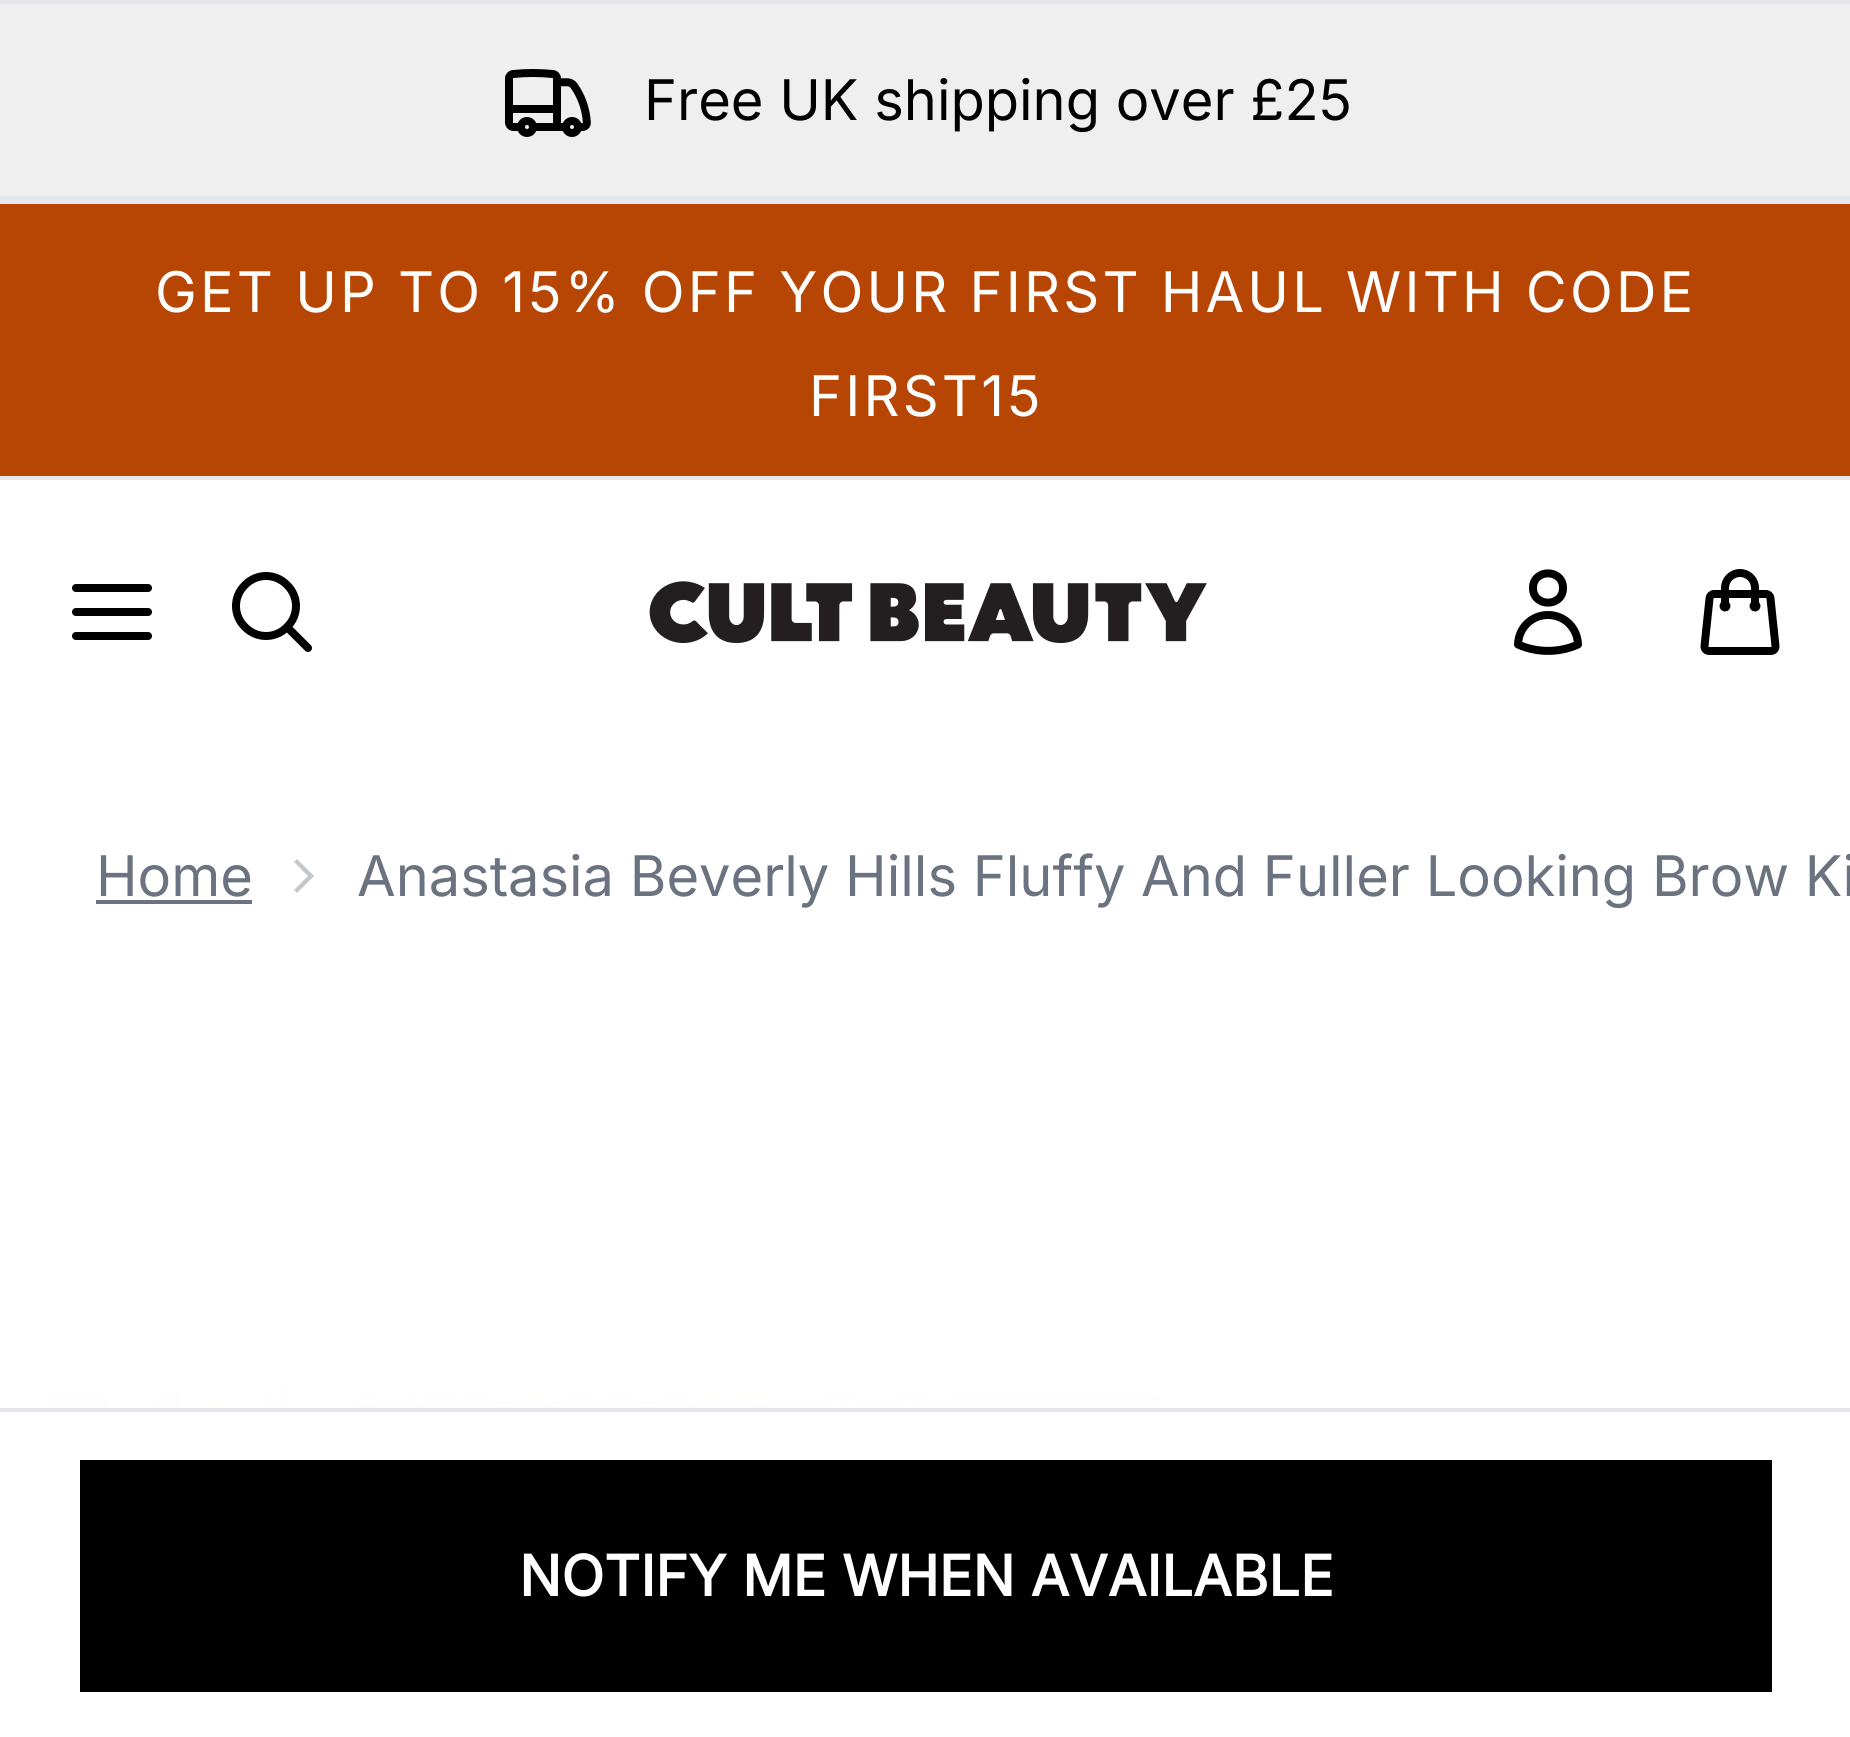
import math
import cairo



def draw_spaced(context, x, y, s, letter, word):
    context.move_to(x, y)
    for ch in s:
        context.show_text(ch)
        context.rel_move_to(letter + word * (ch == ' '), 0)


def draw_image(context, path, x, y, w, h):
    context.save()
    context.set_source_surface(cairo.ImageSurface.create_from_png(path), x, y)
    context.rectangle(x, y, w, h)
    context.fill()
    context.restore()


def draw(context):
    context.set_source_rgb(1, 1, 1)
    context.paint()
    context.set_source_rgb(239 / 255, 239 / 255, 239 / 255)
    context.rectangle(0, 4, 1850, 192)
    context.fill()
    context.set_source_rgb(229 / 255, 231 / 255, 235 / 255)
    context.rectangle(0, 0, 1850, 4)
    context.fill()
    draw_image(context, "images/1.png", 505, 69, 86, 68)
    context.set_source_rgb(183 / 255, 70 / 255, 4 / 255)
    context.rectangle(0, 204, 1850, 272)
    context.fill()
    context.set_source_rgb(229 / 255, 231 / 255, 235 / 255)
    context.rectangle(0, 196, 1850, 8)
    context.fill()
    context.rectangle(0, 476, 1850, 4)
    context.fill()
    context.new_path()
    context.move_to(76, 612)
    context.line_to(148, 612)
    context.set_source_rgb(0, 0, 0)
    context.set_line_width(8)
    context.set_line_cap(cairo.LineCap.ROUND)
    context.set_line_join(cairo.LineJoin.ROUND)
    context.stroke()
    context.new_path()
    context.move_to(76, 588)
    context.line_to(148, 588)
    context.stroke()
    context.new_path()
    context.move_to(76, 636)
    context.line_to(148, 636)
    context.stroke()
    context.new_path()
    context.move_to(308, 648)
    context.line_to(287, 627)
    context.move_to(287, 627)
    context.curve_to(299, 615.5, 299, 596.5, 287, 585)
    context.curve_to(275.5, 573, 256.5, 573, 245, 585)
    context.curve_to(233, 596.5, 233, 615.5, 245, 627)
    context.curve_to(256.5, 639, 275.5, 639, 287, 627)
    context.close_path()
    context.stroke()
    draw_image(context, "images/2.png", 649, 581, 558, 63)
    context.new_path()
    context.move_to(1563, 588)
    context.curve_to(1563, 607.5, 1533, 607.5, 1533, 588)
    context.curve_to(1533, 568.5, 1563, 568.5, 1563, 588)
    context.close_path()
    context.move_to(1518, 644.5)
    context.curve_to(1518.5, 628, 1531.5, 615, 1548, 615)
    context.curve_to(1564.5, 615, 1577.5, 628, 1578, 644.5)
    context.curve_to(1559, 653, 1537, 653, 1518, 644.5)
    context.close_path()
    context.stroke()
    draw_image(context, "images/3.png", 1700, 569, 80, 86)
    context.set_source_rgb(107 / 255, 114 / 255, 128 / 255)
    context.rectangle(96, 900, 156, 4)
    context.fill()
    context.set_source_rgb(196 / 255, 199 / 255, 204 / 255)
    context.new_path()
    context.move_to(297, 859)
    context.line_to(314, 876)
    context.line_to(311, 879)
    context.line_to(294, 862)
    context.close_path()
    context.fill()
    context.new_path()
    context.move_to(311, 873)
    context.line_to(314, 876)
    context.line_to(297, 893)
    context.line_to(294, 890)
    context.close_path()
    context.fill()
    draw_image(context, "images/4.png", 0, 964, 1850, 444)
    context.set_source_rgb(229 / 255, 231 / 255, 235 / 255)
    context.rectangle(0, 1408, 1850, 4)
    context.fill()
    context.set_source_rgb(0, 0, 0)
    context.rectangle(80, 1460, 1692, 232)
    context.fill()
    context.select_font_face("Inter")
    context.set_font_size(56)
    context.move_to(644, 120)
    context.show_text("Free UK shipping over £25")
    context.set_source_rgb(1, 1, 1)
    draw_spaced(context, 155, 312, "GET UP TO 15% OFF YOUR FIRST HAUL WITH CODE", 3.2, 0)
    draw_spaced(context, 809, 416, "FIRST15", 3.2, 0)
    context.set_source_rgb(107 / 255, 114 / 255, 128 / 255)
    context.move_to(96, 896)
    context.show_text("Home")
    context.move_to(357, 896)
    context.show_text("Anastasia Beverly Hills Fluffy And Fuller Looking Brow Ki")
    context.select_font_face("Inter", cairo.FontSlant.NORMAL, cairo.FontWeight.BOLD)
    context.set_source_rgb(1, 1, 1)
    context.move_to(519, 1596)
    context.show_text("NOTIFY ME WHEN AVAILABLE")


surface = cairo.ImageSurface(cairo.Format.RGB24, 1850, 1737)
context = cairo.Context(surface)
options = cairo.FontOptions()
options.set_hint_metrics(cairo.HintMetrics.OFF)
options.set_hint_style(cairo.HintStyle.NONE)
context.set_font_options(options)
context.set_miter_limit(4)
draw(context)
surface.write_to_png("out.png")
